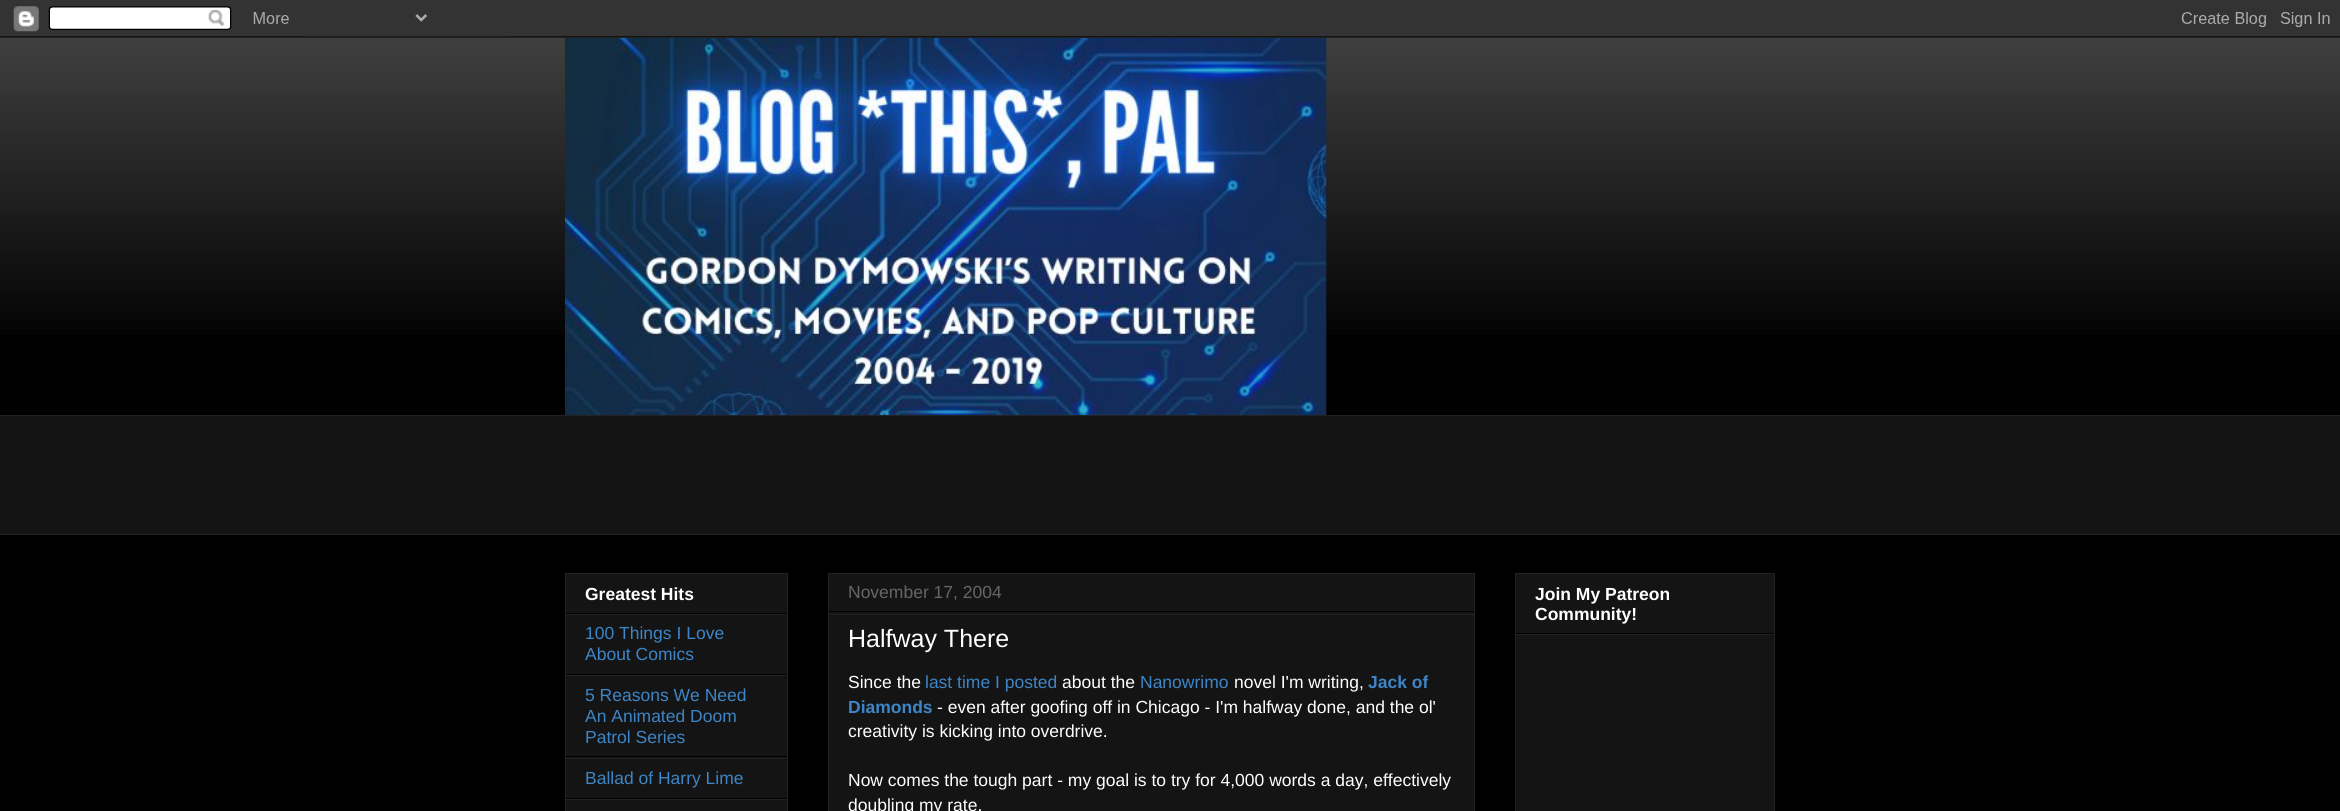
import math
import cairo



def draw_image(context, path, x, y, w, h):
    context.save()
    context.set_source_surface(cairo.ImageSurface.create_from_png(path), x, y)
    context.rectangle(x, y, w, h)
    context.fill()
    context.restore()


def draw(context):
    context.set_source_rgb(0, 0, 0)
    context.paint()
    draw_image(context, "images/2.png", 0, 36, 2340, 299)
    draw_image(context, "images/1.png", 0, 0, 2340, 38)
    draw_image(context, "images/3.png", 565, 38, 762, 377)
    context.set_source_rgb(20 / 255, 20 / 255, 20 / 255)
    context.rectangle(0, 416, 2340, 118)
    context.fill()
    context.set_source_rgb(34 / 255, 34 / 255, 34 / 255)
    context.rectangle(0, 415, 2340, 1)
    context.fill()
    context.rectangle(0, 534, 2340, 1)
    context.fill()
    context.set_source_rgb(20 / 255, 20 / 255, 20 / 255)
    context.rectangle(565.5, 573.5, 222, 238)
    context.fill_preserve()
    context.set_source_rgb(34 / 255, 34 / 255, 34 / 255)
    context.set_line_width(1)
    context.stroke()
    context.set_source_rgb(0, 0, 0)
    context.rectangle(566, 613, 220, 1)
    context.fill()
    context.set_source_rgb(34 / 255, 34 / 255, 34 / 255)
    context.rectangle(566, 614, 220, 1)
    context.fill()
    context.set_source_rgb(0, 0, 0)
    context.rectangle(566, 674, 220, 1)
    context.fill()
    context.set_source_rgb(34 / 255, 34 / 255, 34 / 255)
    context.rectangle(566, 675, 220, 1)
    context.fill()
    context.set_source_rgb(0, 0, 0)
    context.rectangle(566, 756, 220, 1)
    context.fill()
    context.set_source_rgb(34 / 255, 34 / 255, 34 / 255)
    context.rectangle(566, 758, 220, 1)
    context.fill()
    context.set_source_rgb(0, 0, 0)
    context.rectangle(566, 798, 220, 1)
    context.fill()
    context.set_source_rgb(34 / 255, 34 / 255, 34 / 255)
    context.rectangle(566, 799, 220, 1)
    context.fill()
    context.set_source_rgb(20 / 255, 20 / 255, 20 / 255)
    context.rectangle(828.5, 573.5, 646, 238)
    context.fill_preserve()
    context.set_source_rgb(34 / 255, 34 / 255, 34 / 255)
    context.stroke()
    context.set_source_rgb(0, 0, 0)
    context.rectangle(829, 611, 645, 1)
    context.fill()
    context.set_source_rgb(34 / 255, 34 / 255, 34 / 255)
    context.rectangle(829, 614, 645, 1)
    context.fill()
    context.set_source_rgb(20 / 255, 20 / 255, 20 / 255)
    context.rectangle(1515.5, 573.5, 259, 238)
    context.fill_preserve()
    context.set_source_rgb(34 / 255, 34 / 255, 34 / 255)
    context.stroke()
    context.set_source_rgb(0, 0, 0)
    context.rectangle(1516, 633, 258, 1)
    context.fill()
    context.set_source_rgb(34 / 255, 34 / 255, 34 / 255)
    context.rectangle(1516, 634, 258, 1)
    context.fill()
    context.select_font_face("Liberation Sans", cairo.FontSlant.NORMAL, cairo.FontWeight.BOLD)
    context.set_font_size(17.5)
    context.set_source_rgb(1, 1, 1)
    context.move_to(585, 600)
    context.show_text("Greatest Hits")
    context.select_font_face("Liberation Sans")
    context.set_source_rgb(61 / 255, 133 / 255, 198 / 255)
    context.move_to(585, 639)
    context.show_text("100 Things I Love")
    context.move_to(585, 660)
    context.show_text("About Comics")
    context.move_to(585, 701)
    context.show_text("5 Reasons We Need")
    context.move_to(585, 722)
    context.show_text("An Animated Doom")
    context.move_to(585, 743)
    context.show_text("Patrol Series")
    context.move_to(585, 784)
    context.show_text("Ballad of Harry Lime")
    context.set_source_rgb(102 / 255, 102 / 255, 102 / 255)
    context.move_to(848, 598)
    context.show_text("November 17, 2004")
    context.set_font_size(25)
    context.set_source_rgb(1, 1, 1)
    context.move_to(848, 647)
    context.show_text("Halfway There")
    context.set_font_size(17.5)
    context.move_to(848, 688)
    context.show_text("Since the")
    context.set_source_rgb(61 / 255, 133 / 255, 198 / 255)
    context.move_to(925, 688)
    context.show_text("last time I posted")
    context.set_source_rgb(1, 1, 1)
    context.move_to(1062, 688)
    context.show_text("about the")
    context.set_source_rgb(61 / 255, 133 / 255, 198 / 255)
    context.move_to(1140, 688)
    context.show_text("Nanowrimo")
    context.set_source_rgb(1, 1, 1)
    context.move_to(1234, 688)
    context.show_text("novel I'm writing,")
    context.select_font_face("Liberation Sans", cairo.FontSlant.NORMAL, cairo.FontWeight.BOLD)
    context.set_source_rgb(61 / 255, 133 / 255, 198 / 255)
    context.move_to(1368, 688)
    context.show_text("Jack of")
    context.move_to(848, 713)
    context.show_text("Diamonds")
    context.select_font_face("Liberation Sans")
    context.set_source_rgb(1, 1, 1)
    context.move_to(937, 713)
    context.show_text("- even after goofing off in Chicago - I'm halfway done, and the ol'")
    context.move_to(848, 737)
    context.show_text("creativity is kicking into overdrive.")
    context.move_to(848, 786)
    context.show_text("Now comes the tough part - my goal is to try for 4,000 words a day, effectively")
    context.move_to(848, 811)
    context.show_text("doubling my rate.")
    context.select_font_face("Liberation Sans", cairo.FontSlant.NORMAL, cairo.FontWeight.BOLD)
    context.move_to(1535, 600)
    context.show_text("Join My Patreon")
    context.move_to(1535, 620)
    context.show_text("Community!")


surface = cairo.ImageSurface(cairo.Format.RGB24, 2340, 811)
context = cairo.Context(surface)
options = cairo.FontOptions()
options.set_hint_metrics(cairo.HintMetrics.OFF)
options.set_hint_style(cairo.HintStyle.NONE)
context.set_font_options(options)
context.set_miter_limit(4)
draw(context)
surface.write_to_png("out.png")
